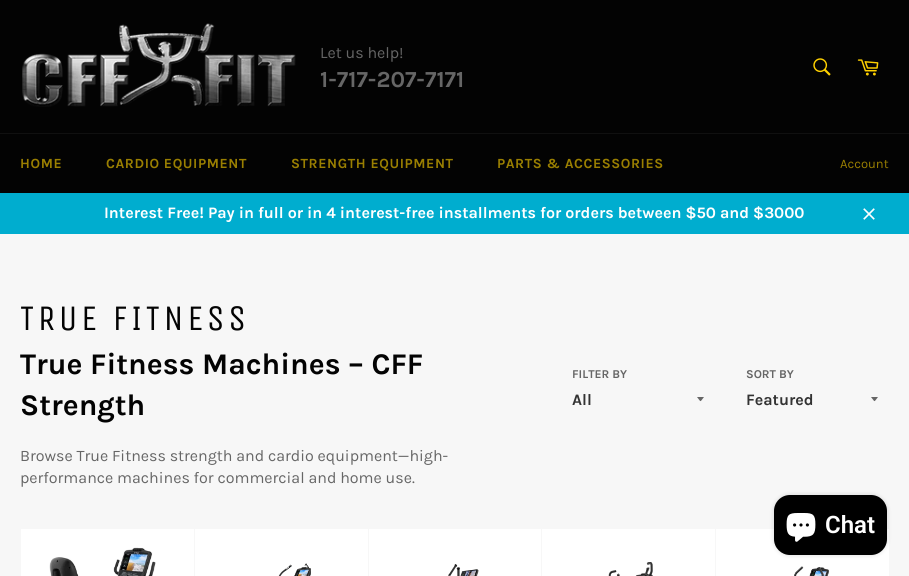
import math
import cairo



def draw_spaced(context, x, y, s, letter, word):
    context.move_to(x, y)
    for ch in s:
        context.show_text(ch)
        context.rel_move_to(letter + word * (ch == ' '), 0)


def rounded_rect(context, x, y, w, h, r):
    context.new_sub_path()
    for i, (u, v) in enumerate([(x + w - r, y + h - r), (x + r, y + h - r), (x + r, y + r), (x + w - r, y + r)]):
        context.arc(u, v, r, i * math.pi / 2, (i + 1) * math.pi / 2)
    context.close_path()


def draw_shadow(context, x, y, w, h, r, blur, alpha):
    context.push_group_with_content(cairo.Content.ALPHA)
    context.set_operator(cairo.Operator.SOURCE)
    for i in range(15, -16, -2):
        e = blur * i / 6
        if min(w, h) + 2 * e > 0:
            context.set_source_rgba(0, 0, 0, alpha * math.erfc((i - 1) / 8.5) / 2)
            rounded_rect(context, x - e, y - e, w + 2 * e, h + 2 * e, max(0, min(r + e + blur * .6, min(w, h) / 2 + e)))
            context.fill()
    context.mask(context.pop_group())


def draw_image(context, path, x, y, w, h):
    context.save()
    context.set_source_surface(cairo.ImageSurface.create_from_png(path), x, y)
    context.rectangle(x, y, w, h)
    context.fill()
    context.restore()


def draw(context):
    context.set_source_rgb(247 / 255, 247 / 255, 247 / 255)
    context.paint()
    context.set_source_rgb(3 / 255, 3 / 255, 3 / 255)
    context.rectangle(0, 0, 909, 133)
    context.fill()
    draw_image(context, "images/1.png", 22, 23, 274, 84)
    draw_image(context, "images/2.png", 813, 58, 18, 18)
    draw_image(context, "images/3.png", 857, 59, 22, 17)
    context.rectangle(0, 134, 909, 59)
    context.fill()
    context.set_source_rgb(16 / 255, 16 / 255, 16 / 255)
    context.rectangle(0, 133, 909, 1)
    context.fill()
    context.set_source_rgb(0, 173 / 255, 207 / 255)
    context.rectangle(0, 193, 909, 41)
    context.fill()
    draw_image(context, "images/4.png", 863, 208, 12, 12)
    context.set_source_rgb(102 / 255, 102 / 255, 102 / 255)
    context.new_path()
    context.move_to(697, 397)
    context.curve_to(701.5, 402.5, 699.5, 402.5, 704, 397)
    context.close_path()
    context.fill()
    context.new_path()
    context.move_to(871, 397)
    context.curve_to(875.5, 402.5, 873.5, 402.5, 878, 397)
    context.close_path()
    context.fill()
    context.set_source_rgb(1, 1, 1)
    context.rectangle(21, 529, 173, 47)
    context.fill()
    draw_image(context, "images/5.png", 49, 547, 107, 29)
    context.rectangle(195, 529, 173, 47)
    context.fill()
    draw_image(context, "images/6.png", 278, 563, 33, 13)
    context.rectangle(369, 529, 172, 47)
    context.fill()
    draw_image(context, "images/7.png", 448, 564, 31, 12)
    context.rectangle(542, 529, 173, 47)
    context.fill()
    draw_image(context, "images/8.png", 608, 562, 45, 14)
    context.rectangle(716, 529, 173, 47)
    context.fill()
    draw_image(context, "images/9.png", 794, 566, 36, 10)
    context.set_source_rgb(0, 0, 0)
    draw_shadow(context, 774, 495, 113, 60, 16, 2.5, 0.15)
    context.set_source_rgb(0, 0, 0)
    rounded_rect(context, 774, 495, 113, 60, 16)
    context.fill()
    draw_image(context, "images/10.png", 786, 513, 30, 29)
    context.select_font_face("Karla")
    context.set_font_size(16)
    context.set_source_rgb(102 / 255, 102 / 255, 102 / 255)
    context.move_to(320, 58)
    context.show_text("Let us help!")
    context.select_font_face("Karla", cairo.FontSlant.NORMAL, cairo.FontWeight.BOLD)
    context.set_font_size(23)
    context.move_to(320, 87)
    context.show_text("1-717-207-7171")
    context.set_font_size(14)
    context.set_source_rgb(154 / 255, 127 / 255, 1 / 255)
    draw_spaced(context, 20, 168, "HOME", 0.6, 0)
    draw_spaced(context, 106, 168, "CARDIO EQUIPMENT", 0.6, 0)
    draw_spaced(context, 291, 168, "STRENGTH EQUIPMENT", 0.6, 0)
    draw_spaced(context, 497, 168, "PARTS & ACCESSORIES", 0.6, 0)
    context.select_font_face("Karla")
    context.set_font_size(13)
    context.move_to(840, 168)
    context.show_text("Account")
    context.select_font_face("Karla", cairo.FontSlant.NORMAL, cairo.FontWeight.BOLD)
    context.set_font_size(16)
    context.set_source_rgb(1, 1, 1)
    context.move_to(104, 218)
    context.show_text("Interest Free! Pay in full or in 4 interest-free installments for orders between $50 and $3000")
    context.select_font_face("Unica One")
    context.set_font_size(36)
    context.set_source_rgb(3 / 255, 3 / 255, 3 / 255)
    draw_spaced(context, 20, 330, "TRUE FITNESS", 3.6, 0)
    context.select_font_face("Karla", cairo.FontSlant.NORMAL, cairo.FontWeight.BOLD)
    context.set_font_size(30)
    context.move_to(20, 374)
    context.show_text("True Fitness Machines – CFF")
    context.move_to(20, 415)
    context.show_text("Strength")
    context.select_font_face("Karla")
    context.set_font_size(16)
    context.set_source_rgb(102 / 255, 102 / 255, 102 / 255)
    context.move_to(20, 461)
    context.show_text("Browse True Fitness strength and cardio equipment—high-")
    context.move_to(20, 483)
    context.show_text("performance machines for commercial and home use.")
    context.select_font_face("Karla", cairo.FontSlant.NORMAL, cairo.FontWeight.BOLD)
    context.set_font_size(12)
    context.move_to(572, 378)
    context.show_text("FILTER BY")
    context.set_font_size(16)
    context.set_source_rgb(51 / 255, 51 / 255, 51 / 255)
    context.move_to(572, 405)
    context.show_text("All")
    context.set_font_size(12)
    context.set_source_rgb(102 / 255, 102 / 255, 102 / 255)
    context.move_to(746, 378)
    context.show_text("SORT BY")
    context.set_font_size(16)
    context.set_source_rgb(51 / 255, 51 / 255, 51 / 255)
    context.move_to(746, 405)
    context.show_text("Featured")
    context.select_font_face("Roboto SemiBold")
    context.set_font_size(24)
    context.set_source_rgb(1, 1, 1)
    context.move_to(825, 533)
    context.show_text("Chat")


surface = cairo.ImageSurface(cairo.Format.RGB24, 909, 576)
context = cairo.Context(surface)
options = cairo.FontOptions()
options.set_hint_metrics(cairo.HintMetrics.OFF)
options.set_hint_style(cairo.HintStyle.NONE)
context.set_font_options(options)
context.set_miter_limit(4)
draw(context)
surface.write_to_png("out.png")
